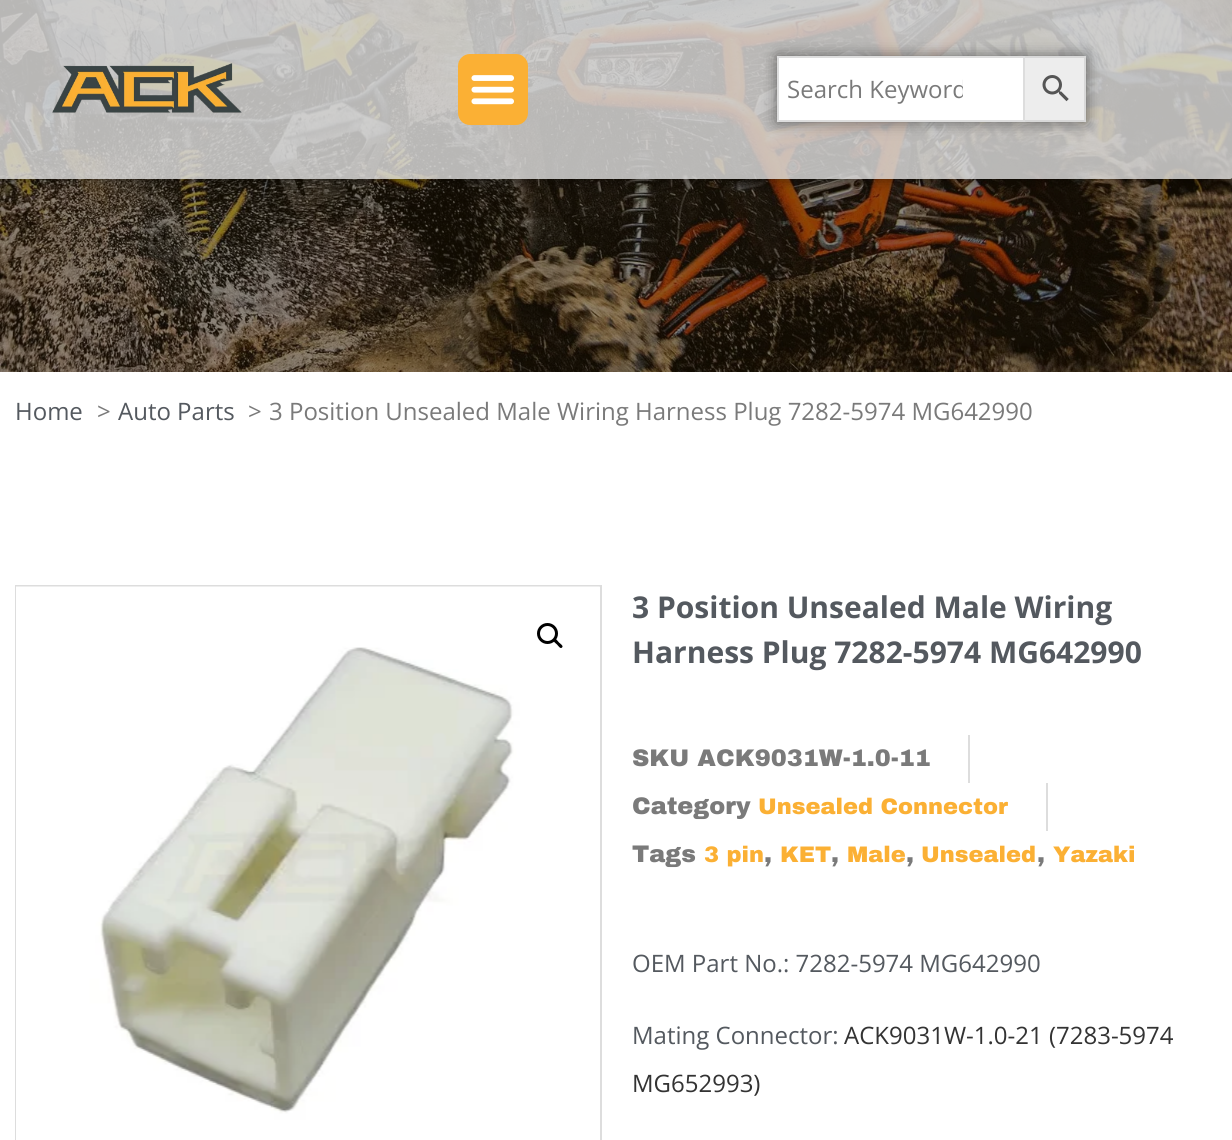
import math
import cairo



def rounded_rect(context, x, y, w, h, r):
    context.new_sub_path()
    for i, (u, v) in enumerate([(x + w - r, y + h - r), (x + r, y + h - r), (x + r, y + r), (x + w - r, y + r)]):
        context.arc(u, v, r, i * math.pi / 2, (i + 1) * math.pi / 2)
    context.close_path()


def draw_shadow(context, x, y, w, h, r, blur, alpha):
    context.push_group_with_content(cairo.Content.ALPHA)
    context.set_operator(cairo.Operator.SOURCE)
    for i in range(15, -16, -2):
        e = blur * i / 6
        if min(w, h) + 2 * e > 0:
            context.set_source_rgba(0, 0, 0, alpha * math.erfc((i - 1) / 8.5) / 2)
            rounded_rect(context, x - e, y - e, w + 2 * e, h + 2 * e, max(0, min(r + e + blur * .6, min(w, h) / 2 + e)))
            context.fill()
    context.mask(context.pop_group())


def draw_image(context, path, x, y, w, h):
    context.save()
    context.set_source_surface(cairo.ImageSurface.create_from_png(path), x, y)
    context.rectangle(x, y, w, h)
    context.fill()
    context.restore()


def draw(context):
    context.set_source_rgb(1, 1, 1)
    context.paint()
    draw_image(context, "images/4.png", 0, 0, 1232, 372)
    context.save()
    context.set_fill_rule(cairo.FillRule.EVEN_ODD)
    context.new_path()
    context.move_to(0, 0)
    context.line_to(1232, 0)
    context.line_to(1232, 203)
    context.line_to(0, 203)
    context.close_path()
    context.move_to(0, 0)
    context.line_to(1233, 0)
    context.line_to(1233, 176)
    context.curve_to(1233, 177.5, 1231.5, 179, 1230, 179)
    context.line_to(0, 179)
    context.close_path()
    context.clip()
    context.set_source_rgb(0, 0, 0)
    draw_shadow(context, 0, 0, 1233, 179, 3, 7.5, 0.5)
    context.restore()
    context.set_source_rgba(221 / 255, 221 / 255, 221 / 255, 0.82)
    context.new_path()
    context.move_to(0, 0)
    context.line_to(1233, 0)
    context.line_to(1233, 176)
    context.curve_to(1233, 177.5, 1231.5, 179, 1230, 179)
    context.line_to(0, 179)
    context.close_path()
    context.fill()
    draw_image(context, "images/1.png", 52, 63, 190, 50)
    context.set_source_rgb(251 / 255, 176 / 255, 52 / 255)
    rounded_rect(context, 458, 54, 70, 71, 12)
    context.fill()
    draw_image(context, "images/2.png", 471, 75, 43, 30)
    context.set_source_rgb(0, 0, 0)
    draw_shadow(context, 777, 56, 309, 66, 0, 7.5, 0.5)
    context.set_source_rgb(237 / 255, 237 / 255, 237 / 255)
    context.rectangle(1024, 57, 61, 64)
    context.fill_preserve()
    context.set_source_rgb(216 / 255, 216 / 255, 216 / 255)
    context.stroke()
    context.set_source_rgb(1, 1, 1)
    context.rectangle(778, 57, 246, 64)
    context.fill_preserve()
    context.set_source_rgb(221 / 255, 221 / 255, 221 / 255)
    context.stroke()
    draw_image(context, "images/3.png", 1042, 75, 27, 27)
    context.rectangle(16, 586, 585, 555)
    context.stroke()
    draw_image(context, "images/5.png", 16, 586, 584, 554)
    context.arc(547.5, 633.5, 9, 0, 2 * math.pi)
    context.set_source_rgb(0, 0, 0)
    context.set_line_width(3)
    context.stroke()
    context.new_path()
    context.move_to(554, 639)
    context.curve_to(555.5, 637.5, 558, 641.5, 559, 642.5)
    context.curve_to(560, 643.5, 564, 646, 562, 647.5)
    context.curve_to(560.5, 649.5, 558, 645.5, 557, 644.5)
    context.curve_to(556, 643.5, 552, 641, 554, 639)
    context.close_path()
    context.fill()
    context.set_source_rgb(221 / 255, 221 / 255, 221 / 255)
    context.rectangle(968, 735, 2, 48)
    context.fill()
    context.rectangle(1046, 783, 2, 48)
    context.fill()
    context.save()
    context.rectangle(788, 72, 175, 33)
    context.clip()
    context.select_font_face("Open Sans")
    context.set_font_size(24)
    context.set_source_rgb(122 / 255, 122 / 255, 122 / 255)
    context.move_to(787, 98)
    context.show_text("Search Keyword")
    context.restore()
    context.select_font_face("Open Sans")
    context.set_font_size(24)
    context.set_source_rgb(84 / 255, 89 / 255, 95 / 255)
    context.move_to(15, 420)
    context.show_text("Home")
    context.set_source_rgb(122 / 255, 122 / 255, 122 / 255)
    context.move_to(97, 420)
    context.show_text(">")
    context.set_source_rgb(84 / 255, 89 / 255, 95 / 255)
    context.move_to(118, 420)
    context.show_text("Auto Parts")
    context.set_source_rgb(122 / 255, 122 / 255, 122 / 255)
    context.move_to(248, 420)
    context.show_text(">")
    context.move_to(269, 420)
    context.show_text("3 Position Unsealed Male Wiring Harness Plug 7282-5974 MG642990")
    context.select_font_face("Open Sans", cairo.FontSlant.NORMAL, cairo.FontWeight.BOLD)
    context.set_font_size(30)
    context.set_source_rgb(84 / 255, 89 / 255, 95 / 255)
    context.move_to(632, 618)
    context.show_text("3 Position Unsealed Male Wiring")
    context.move_to(632, 663)
    context.show_text("Harness Plug 7282-5974 MG642990")
    context.select_font_face("Archivo Black Black")
    context.set_font_size(24)
    context.set_source_rgb(122 / 255, 122 / 255, 122 / 255)
    context.move_to(632, 766)
    context.show_text("SKU ACK9031W-1.0-11")
    context.move_to(632, 814)
    context.show_text("Category")
    context.set_font_size(22.5)
    context.set_source_rgb(251 / 255, 176 / 255, 52 / 255)
    context.move_to(758, 814)
    context.show_text("Unsealed Connector")
    context.set_font_size(24)
    context.set_source_rgb(122 / 255, 122 / 255, 122 / 255)
    context.move_to(632, 862)
    context.show_text("Tags")
    context.set_font_size(22.5)
    context.set_source_rgb(251 / 255, 176 / 255, 52 / 255)
    context.move_to(704, 862)
    context.show_text("3 pin")
    context.set_font_size(24)
    context.set_source_rgb(122 / 255, 122 / 255, 122 / 255)
    context.move_to(764, 862)
    context.show_text(",")
    context.set_font_size(22.5)
    context.set_source_rgb(251 / 255, 176 / 255, 52 / 255)
    context.move_to(780, 862)
    context.show_text("KET")
    context.set_font_size(24)
    context.set_source_rgb(122 / 255, 122 / 255, 122 / 255)
    context.move_to(831, 862)
    context.show_text(",")
    context.set_font_size(22.5)
    context.set_source_rgb(251 / 255, 176 / 255, 52 / 255)
    context.move_to(847, 862)
    context.show_text("Male")
    context.set_font_size(24)
    context.set_source_rgb(122 / 255, 122 / 255, 122 / 255)
    context.move_to(906, 862)
    context.show_text(",")
    context.set_font_size(22.5)
    context.set_source_rgb(251 / 255, 176 / 255, 52 / 255)
    context.move_to(921, 862)
    context.show_text("Unsealed")
    context.set_font_size(24)
    context.set_source_rgb(122 / 255, 122 / 255, 122 / 255)
    context.move_to(1037, 862)
    context.show_text(",")
    context.set_font_size(22.5)
    context.set_source_rgb(251 / 255, 176 / 255, 52 / 255)
    context.move_to(1053, 862)
    context.show_text("Yazaki")
    context.select_font_face("Open Sans")
    context.set_font_size(24)
    context.set_source_rgb(84 / 255, 89 / 255, 95 / 255)
    context.move_to(632, 972)
    context.show_text("OEM Part No.: 7282-5974 MG642990")
    context.move_to(632, 1044)
    context.show_text("Mating Connector:")
    context.set_source_rgb(51 / 255, 51 / 255, 51 / 255)
    context.move_to(844, 1044)
    context.show_text("ACK9031W-1.0-21 (7283-5974")
    context.move_to(632, 1092)
    context.show_text("MG652993)")


surface = cairo.ImageSurface(cairo.Format.RGB24, 1232, 1140)
context = cairo.Context(surface)
options = cairo.FontOptions()
options.set_hint_metrics(cairo.HintMetrics.OFF)
options.set_hint_style(cairo.HintStyle.NONE)
context.set_font_options(options)
context.set_miter_limit(4)
draw(context)
surface.write_to_png("out.png")
